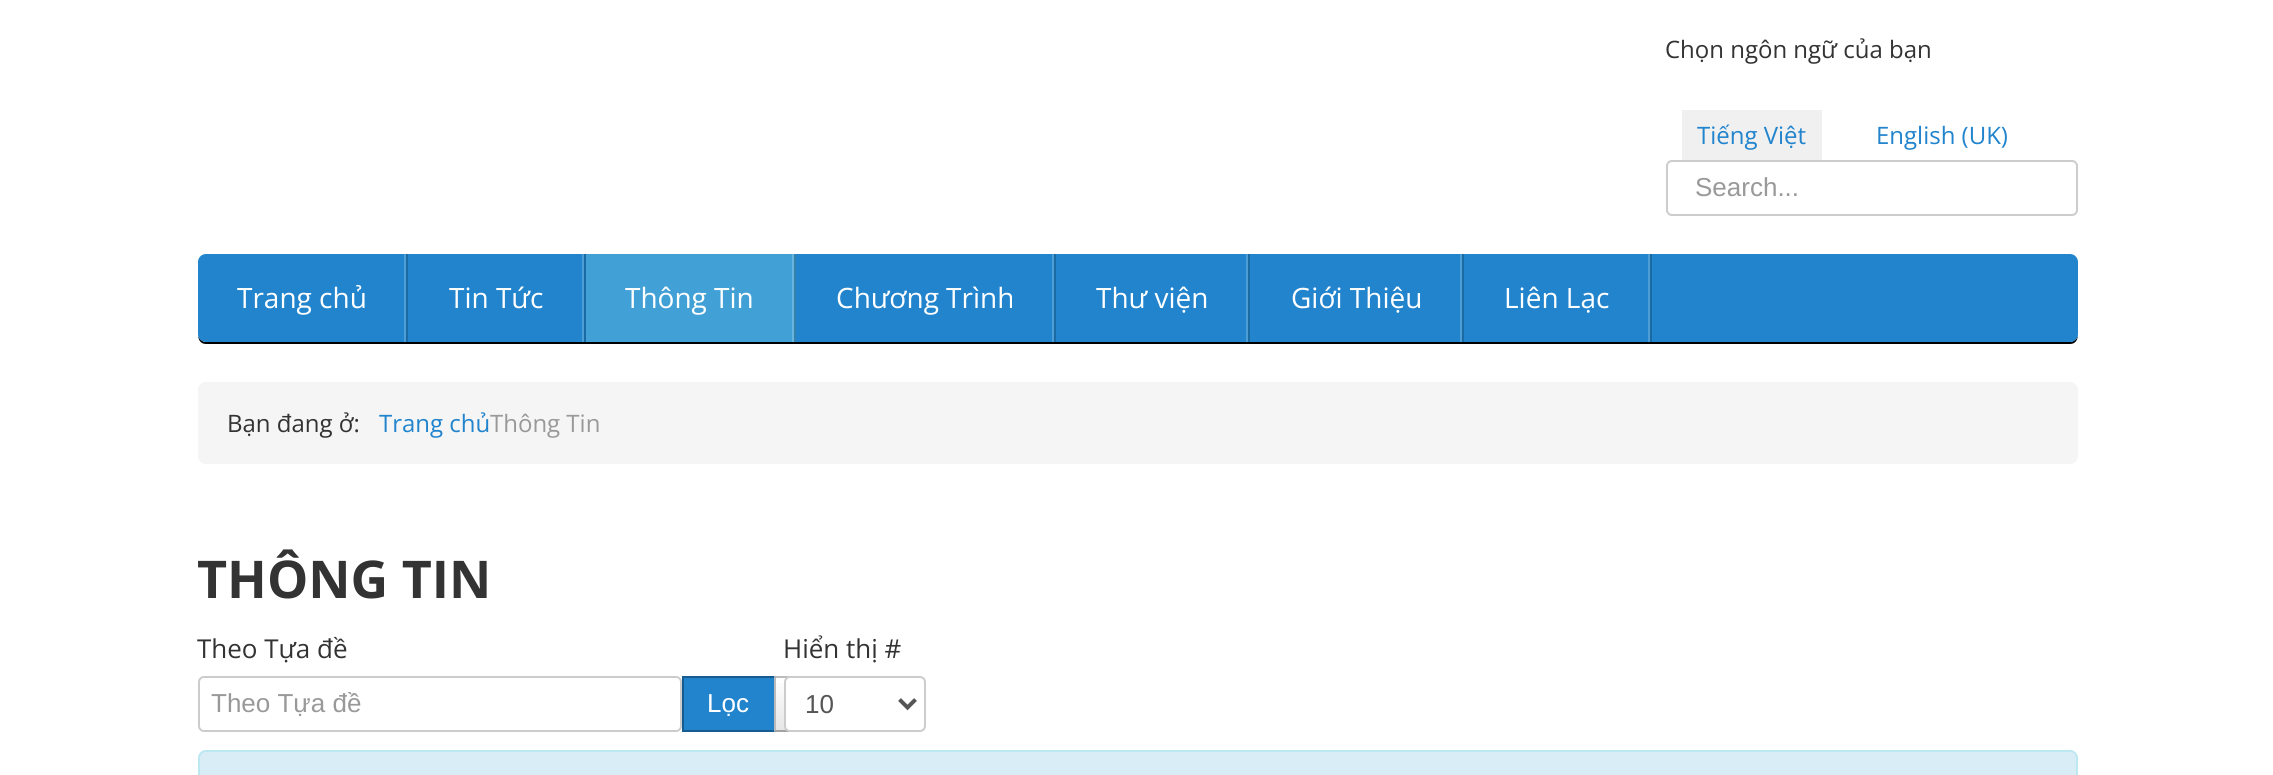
import math
import cairo



def rounded_rect(context, x, y, w, h, r):
    context.new_sub_path()
    for i, (u, v) in enumerate([(x + w - r, y + h - r), (x + r, y + h - r), (x + r, y + r), (x + w - r, y + r)]):
        context.arc(u, v, r, i * math.pi / 2, (i + 1) * math.pi / 2)
    context.close_path()


def draw(context):
    context.set_source_rgb(1, 1, 1)
    context.paint()
    context.set_source_rgb(240 / 255, 240 / 255, 240 / 255)
    context.rectangle(1682, 110, 140, 50)
    context.fill()
    rounded_rect(context, 1667, 161, 410, 54, 5)
    context.set_source_rgb(204 / 255, 204 / 255, 204 / 255)
    context.stroke()
    context.set_source_rgb(0, 0, 0)
    context.new_path()
    context.move_to(198, 334)
    context.curve_to(198, 339, 200, 344, 206, 344)
    context.line_to(2070, 344)
    context.curve_to(2076, 344, 2078, 339, 2078, 334)
    context.curve_to(2078, 338, 2074, 342, 2070, 342)
    context.line_to(206, 342)
    context.curve_to(202, 342, 198, 338, 198, 334)
    context.close_path()
    context.fill()
    context.set_source_rgb(33 / 255, 132 / 255, 205 / 255)
    rounded_rect(context, 198, 254, 1880, 88, 8)
    context.fill()
    context.set_source_rgb(77 / 255, 157 / 255, 215 / 255)
    context.rectangle(404, 254, 2, 88)
    context.fill()
    context.set_source_rgb(26 / 255, 106 / 255, 164 / 255)
    context.rectangle(406, 254, 2, 88)
    context.fill()
    context.set_source_rgb(77 / 255, 157 / 255, 215 / 255)
    context.rectangle(582, 254, 2, 88)
    context.fill()
    context.set_source_rgb(26 / 255, 106 / 255, 164 / 255)
    context.rectangle(584, 254, 2, 88)
    context.fill()
    context.set_source_rgb(65 / 255, 161 / 255, 214 / 255)
    context.rectangle(586, 254, 206, 88)
    context.fill()
    context.set_source_rgb(103 / 255, 180 / 255, 222 / 255)
    context.rectangle(792, 254, 2, 88)
    context.fill()
    context.set_source_rgb(52 / 255, 129 / 255, 171 / 255)
    context.rectangle(794, 254, 2, 88)
    context.fill()
    context.set_source_rgb(77 / 255, 157 / 255, 215 / 255)
    context.rectangle(1052, 254, 2, 88)
    context.fill()
    context.set_source_rgb(26 / 255, 106 / 255, 164 / 255)
    context.rectangle(1054, 254, 2, 88)
    context.fill()
    context.set_source_rgb(77 / 255, 157 / 255, 215 / 255)
    context.rectangle(1246, 254, 2, 88)
    context.fill()
    context.set_source_rgb(26 / 255, 106 / 255, 164 / 255)
    context.rectangle(1248, 254, 2, 88)
    context.fill()
    context.set_source_rgb(77 / 255, 157 / 255, 215 / 255)
    context.rectangle(1460, 254, 2, 88)
    context.fill()
    context.set_source_rgb(26 / 255, 106 / 255, 164 / 255)
    context.rectangle(1462, 254, 2, 88)
    context.fill()
    context.set_source_rgb(77 / 255, 157 / 255, 215 / 255)
    context.rectangle(1648, 254, 2, 88)
    context.fill()
    context.set_source_rgb(26 / 255, 106 / 255, 164 / 255)
    context.rectangle(1650, 254, 2, 88)
    context.fill()
    context.set_source_rgb(245 / 255, 245 / 255, 245 / 255)
    rounded_rect(context, 198, 382, 1880, 82, 8)
    context.fill()
    rounded_rect(context, 199, 677, 482, 54, 5)
    context.set_source_rgb(204 / 255, 204 / 255, 204 / 255)
    context.stroke()
    context.set_source_rgb(33 / 255, 132 / 255, 205 / 255)
    context.rectangle(683, 677, 92, 54)
    context.fill_preserve()
    context.set_source_rgb(23 / 255, 92 / 255, 144 / 255)
    context.stroke()
    gradient = cairo.LinearGradient(823, 678, 823, 730)
    gradient.add_color_stop_rgba(0, 1, 1, 1, 1)
    gradient.add_color_stop_rgba(1, 230 / 255, 230 / 255, 230 / 255, 1)
    context.set_source(gradient)
    context.rectangle(776, 683, 10, 47)
    context.fill()
    context.set_source_rgb(187 / 255, 187 / 255, 187 / 255)
    context.new_path()
    context.move_to(774, 676)
    context.line_to(776, 678)
    context.line_to(865, 678)
    context.line_to(868, 680)
    context.line_to(870, 678)
    context.curve_to(868, 677, 866, 676, 864, 676)
    context.close_path()
    context.fill()
    context.set_source_rgb(162 / 255, 162 / 255, 162 / 255)
    context.new_path()
    context.move_to(864, 732)
    context.curve_to(866, 732, 868, 731, 870, 730)
    context.line_to(868, 728)
    context.line_to(865, 730)
    context.line_to(776, 730)
    context.line_to(774, 732)
    context.close_path()
    context.fill()
    context.set_source_rgb(187 / 255, 187 / 255, 187 / 255)
    context.new_path()
    context.move_to(774, 676)
    context.line_to(774, 732)
    context.line_to(776, 730)
    context.line_to(776, 678)
    context.close_path()
    context.fill()
    context.set_source_rgb(1, 1, 1)
    rounded_rect(context, 785, 677, 140, 54, 5)
    context.fill_preserve()
    context.set_source_rgb(204 / 255, 204 / 255, 204 / 255)
    context.stroke()
    context.new_path()
    context.move_to(899.5, 699.5)
    context.line_to(907.5, 707.5)
    context.line_to(915.5, 699.5)
    context.set_source_rgb(85 / 255, 85 / 255, 85 / 255)
    context.set_line_width(4)
    context.stroke()
    context.set_source_rgb(217 / 255, 237 / 255, 247 / 255)
    rounded_rect(context, 199, 751, 1878, 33, 7)
    context.fill_preserve()
    context.set_source_rgb(188 / 255, 232 / 255, 241 / 255)
    context.set_line_width(2)
    context.stroke()
    context.select_font_face("Open Sans")
    context.set_font_size(24)
    context.set_source_rgb(51 / 255, 51 / 255, 51 / 255)
    context.move_to(1665, 58)
    context.show_text("Chọn ngôn ngữ của bạn")
    context.set_source_rgb(33 / 255, 132 / 255, 205 / 255)
    context.move_to(1697, 144)
    context.show_text("Tiếng Việt")
    context.move_to(1876, 144)
    context.show_text("English (UK)")
    context.select_font_face("Liberation Sans")
    context.set_font_size(26)
    context.set_source_rgb(153 / 255, 153 / 255, 153 / 255)
    context.move_to(1695, 196)
    context.show_text("Search...")
    context.select_font_face("Open Sans")
    context.set_font_size(28)
    context.set_source_rgb(1, 1, 1)
    context.move_to(237, 308)
    context.show_text("Trang chủ")
    context.move_to(449, 308)
    context.show_text("Tin Tức")
    context.move_to(625, 308)
    context.show_text("Thông Tin")
    context.move_to(836, 308)
    context.show_text("Chương Trình")
    context.move_to(1096, 308)
    context.show_text("Thư viện")
    context.move_to(1291, 308)
    context.show_text("Giới Thiệu")
    context.move_to(1504, 308)
    context.show_text("Liên Lạc")
    context.set_font_size(24)
    context.set_source_rgb(51 / 255, 51 / 255, 51 / 255)
    context.move_to(227, 432)
    context.show_text("Bạn đang ở:")
    context.set_source_rgb(33 / 255, 132 / 255, 205 / 255)
    context.move_to(379, 432)
    context.show_text("Trang chủ")
    context.set_source_rgb(153 / 255, 153 / 255, 153 / 255)
    context.move_to(490, 432)
    context.show_text("Thông Tin")
    context.select_font_face("Open Sans", cairo.FontSlant.NORMAL, cairo.FontWeight.BOLD)
    context.set_font_size(52)
    context.set_source_rgb(51 / 255, 51 / 255, 51 / 255)
    context.move_to(197, 598)
    context.show_text("THÔNG TIN")
    context.select_font_face("Open Sans")
    context.set_font_size(26)
    context.move_to(197, 658)
    context.show_text("Theo Tựa đề")
    context.select_font_face("Liberation Sans")
    context.set_source_rgb(153 / 255, 153 / 255, 153 / 255)
    context.move_to(211, 712)
    context.show_text("Theo Tựa đề")
    context.set_source_rgb(1, 1, 1)
    context.move_to(707, 712)
    context.show_text("Lọc")
    context.select_font_face("Open Sans")
    context.set_source_rgb(51 / 255, 51 / 255, 51 / 255)
    context.move_to(783, 658)
    context.show_text("Hiển thị #")
    context.select_font_face("Liberation Sans")
    context.set_source_rgb(85 / 255, 85 / 255, 85 / 255)
    context.move_to(805, 713)
    context.show_text("10")


surface = cairo.ImageSurface(cairo.Format.RGB24, 2273, 775)
context = cairo.Context(surface)
options = cairo.FontOptions()
options.set_hint_metrics(cairo.HintMetrics.OFF)
options.set_hint_style(cairo.HintStyle.NONE)
context.set_font_options(options)
context.set_miter_limit(4)
draw(context)
surface.write_to_png("out.png")
